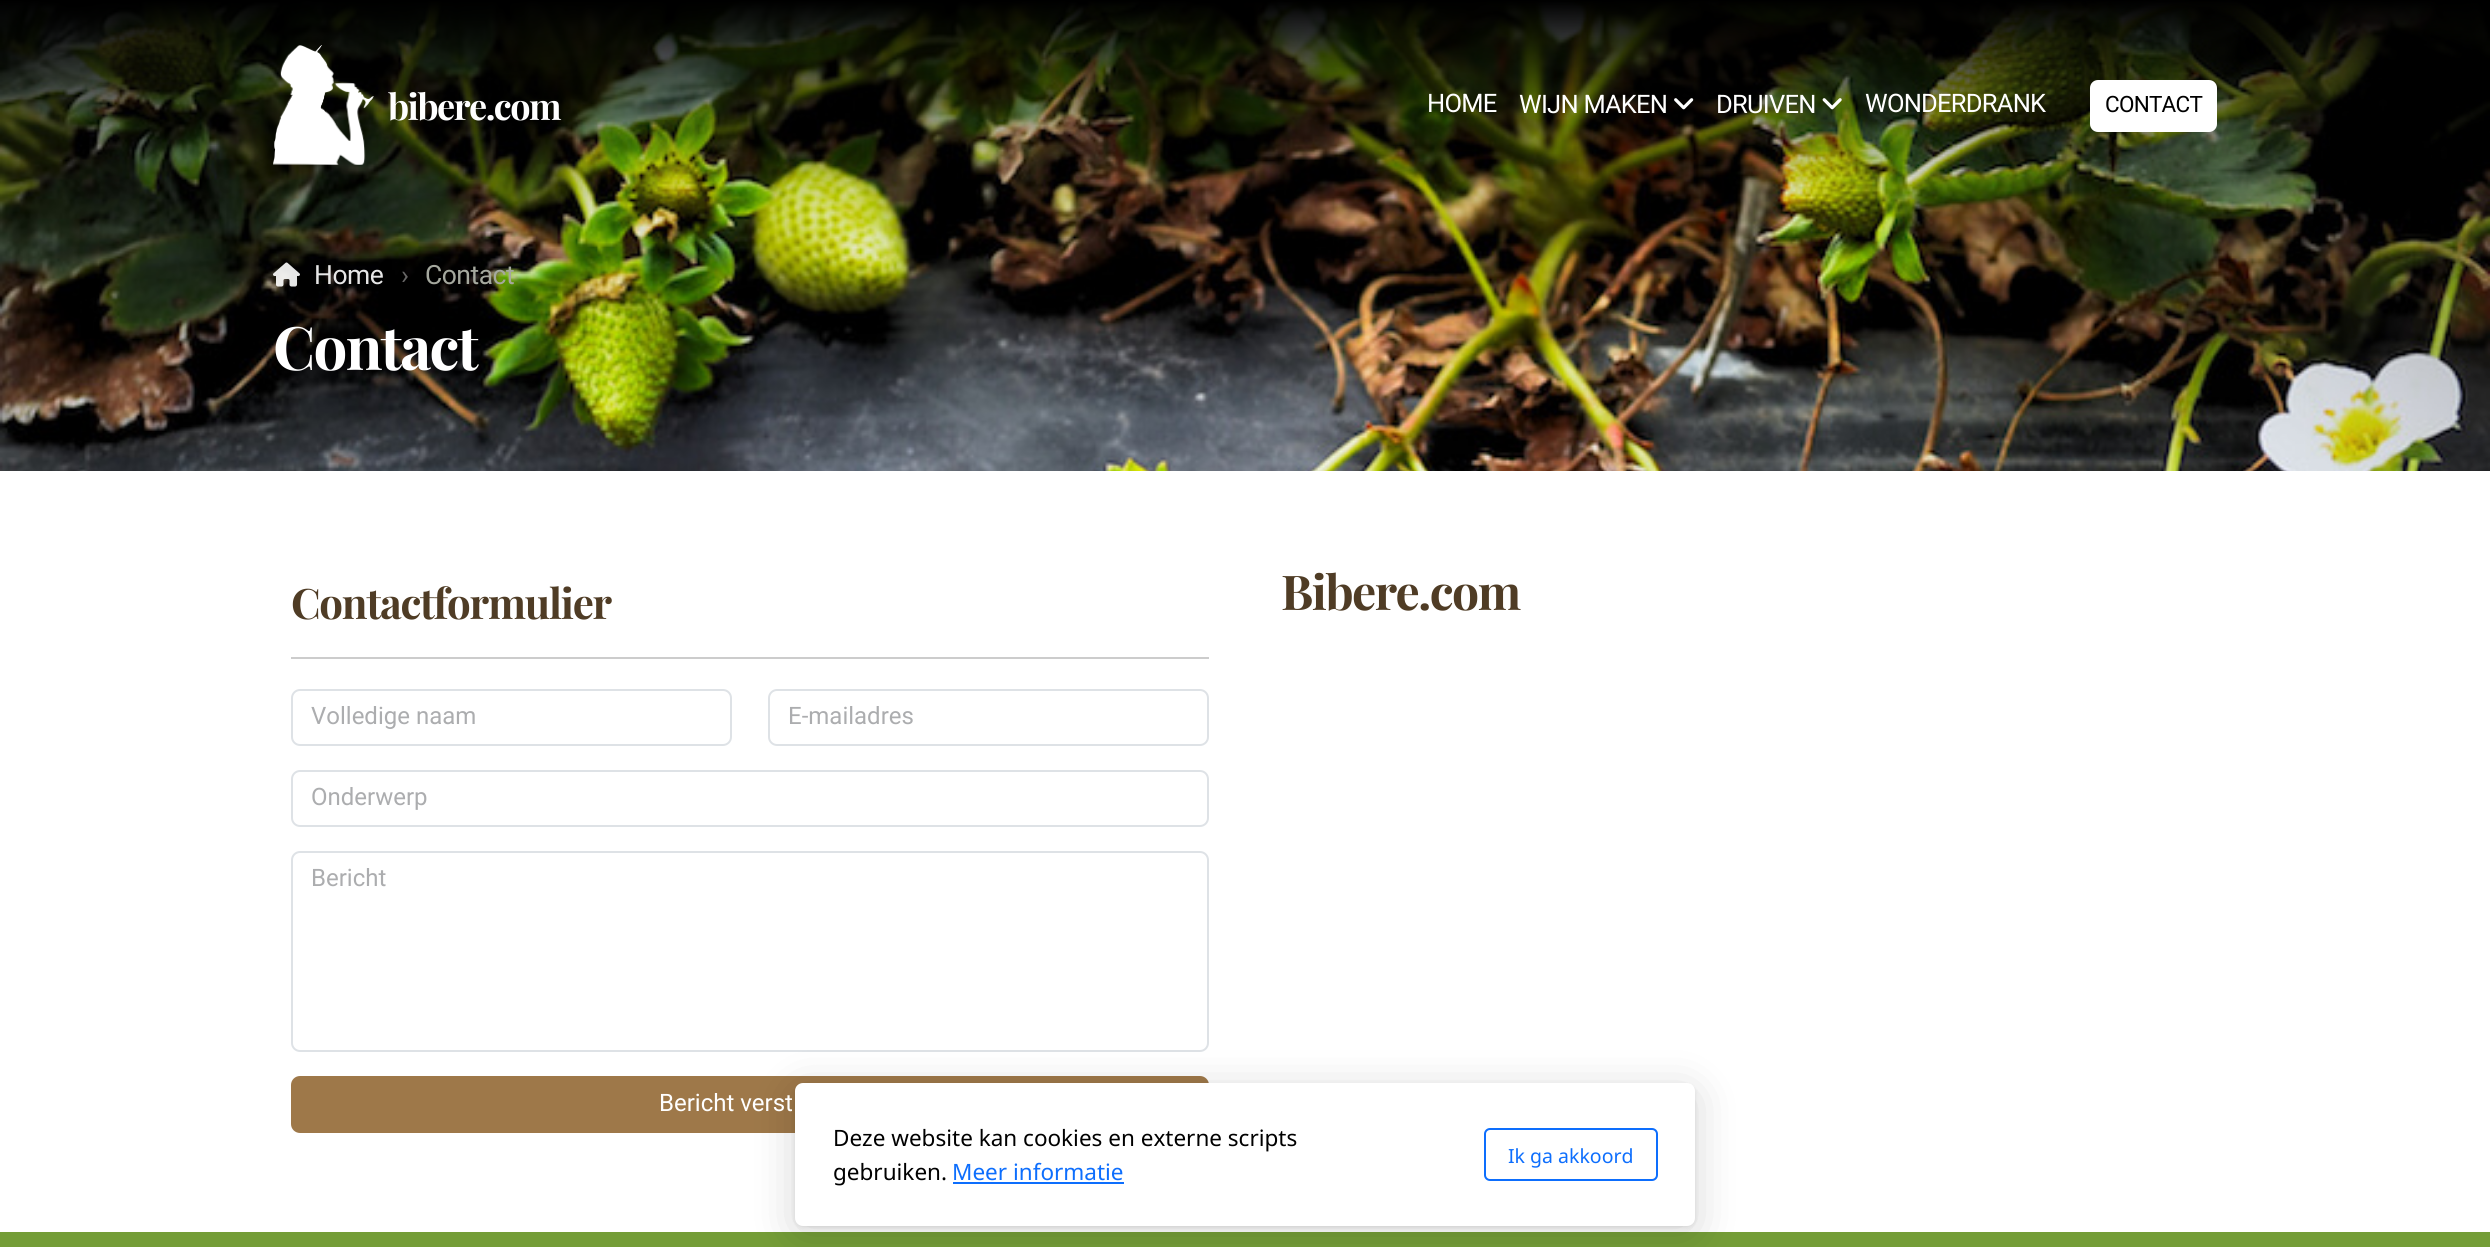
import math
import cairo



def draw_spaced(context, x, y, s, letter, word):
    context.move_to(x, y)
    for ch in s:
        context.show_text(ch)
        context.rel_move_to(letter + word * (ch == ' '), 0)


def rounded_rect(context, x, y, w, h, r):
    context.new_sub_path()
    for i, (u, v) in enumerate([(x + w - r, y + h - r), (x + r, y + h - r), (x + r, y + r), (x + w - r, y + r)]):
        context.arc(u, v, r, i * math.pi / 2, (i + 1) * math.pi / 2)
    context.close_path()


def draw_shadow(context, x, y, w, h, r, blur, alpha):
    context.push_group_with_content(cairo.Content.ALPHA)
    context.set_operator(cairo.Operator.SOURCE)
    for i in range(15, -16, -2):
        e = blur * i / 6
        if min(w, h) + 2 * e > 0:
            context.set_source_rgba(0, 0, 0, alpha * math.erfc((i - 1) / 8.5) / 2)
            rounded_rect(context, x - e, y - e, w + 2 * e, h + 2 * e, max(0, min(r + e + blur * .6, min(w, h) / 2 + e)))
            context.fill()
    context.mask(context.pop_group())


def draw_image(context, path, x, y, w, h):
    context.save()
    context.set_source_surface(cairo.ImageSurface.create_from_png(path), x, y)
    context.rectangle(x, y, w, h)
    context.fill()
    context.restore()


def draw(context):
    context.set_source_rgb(1, 1, 1)
    context.paint()
    draw_image(context, "images/4.png", 0, 0, 2490, 471)
    draw_image(context, "images/1.png", 273, 45, 101, 120)
    draw_image(context, "images/2.png", 1674, 98, 20, 12)
    draw_image(context, "images/3.png", 1822, 98, 20, 12)
    context.set_source_rgb(1, 1, 1)
    rounded_rect(context, 2090, 80, 127, 52, 8)
    context.fill()
    draw_image(context, "images/5.png", 273, 262, 27, 25)
    context.set_source_rgb(204 / 255, 204 / 255, 204 / 255)
    context.rectangle(291, 657, 918, 2)
    context.fill()
    rounded_rect(context, 292, 690, 439, 55, 8)
    context.set_source_rgb(222 / 255, 226 / 255, 230 / 255)
    context.stroke()
    rounded_rect(context, 769, 690, 439, 55, 8)
    context.stroke()
    rounded_rect(context, 292, 771, 916, 55, 8)
    context.stroke()
    rounded_rect(context, 292, 852, 916, 199, 8)
    context.stroke()
    context.set_source_rgb(158 / 255, 120 / 255, 73 / 255)
    rounded_rect(context, 292, 1077, 916, 55, 8)
    context.fill_preserve()
    context.stroke()
    context.set_source_rgb(116 / 255, 157 / 255, 55 / 255)
    context.rectangle(0, 1232, 2490, 15)
    context.fill()
    context.set_source_rgb(0, 0, 0)
    draw_shadow(context, 795, 1091, 900, 142, 8, 22.5, 0.16)
    draw_shadow(context, 795, 1085, 900, 142, 8, 2, 0.1)
    context.set_source_rgb(1, 1, 1)
    rounded_rect(context, 795, 1083, 900, 143, 8)
    context.fill()
    context.set_source_rgb(13 / 255, 110 / 255, 253 / 255)
    context.rectangle(953, 1182, 171, 2)
    context.fill()
    rounded_rect(context, 1485, 1129, 172, 51, 5)
    context.stroke()
    context.select_font_face("Playfair Display", cairo.FontSlant.NORMAL, cairo.FontWeight.BOLD)
    context.set_font_size(36)
    context.set_source_rgb(1, 1, 1)
    draw_spaced(context, 388, 120, "bibere.com", -1.5, 0)
    context.select_font_face("Roboto")
    context.set_font_size(25.5)
    draw_spaced(context, 1427, 112, "HOME", -0.75, 0)
    draw_spaced(context, 1519, 113, "WIJN MAKEN", -0.75, 0)
    draw_spaced(context, 1716, 113, "DRUIVEN", -0.75, 0)
    draw_spaced(context, 1865, 112, "WONDERDRANK", -0.75, 0)
    context.set_font_size(22.5)
    context.set_source_rgb(0, 0, 0)
    draw_spaced(context, 2105, 112, "CONTACT", -0.75, 0)
    context.set_font_size(26.5)
    context.set_source_rgb(230 / 255, 230 / 255, 230 / 255)
    draw_spaced(context, 314, 284, "Home", -0.5, 0)
    context.set_source_rgb(103 / 255, 102 / 255, 102 / 255)
    draw_spaced(context, 401, 284, "›", -0.5, 0)
    context.set_source_rgb(165 / 255, 168 / 255, 158 / 255)
    draw_spaced(context, 425, 284, "Contact", -0.5, 0)
    context.select_font_face("Playfair Display", cairo.FontSlant.NORMAL, cairo.FontWeight.BOLD)
    context.set_font_size(60)
    context.set_source_rgb(1, 1, 1)
    draw_spaced(context, 273, 370, "Contact", -1.75, 0)
    context.set_font_size(42)
    context.set_source_rgb(79 / 255, 60 / 255, 37 / 255)
    draw_spaced(context, 291, 619, "Contactformulier", -1.25, 0)
    context.select_font_face("Roboto")
    context.set_font_size(24)
    context.set_source_rgb(172 / 255, 173 / 255, 175 / 255)
    context.move_to(311, 724)
    context.show_text("Volledige naam")
    context.move_to(788, 724)
    context.show_text("E-mailadres")
    context.move_to(311, 805)
    context.show_text("Onderwerp")
    context.move_to(311, 886)
    context.show_text("Bericht")
    context.set_source_rgb(1, 1, 1)
    context.move_to(659, 1111)
    context.show_text("Bericht verst")
    context.select_font_face("Playfair Display", cairo.FontSlant.NORMAL, cairo.FontWeight.BOLD)
    context.set_font_size(48)
    context.set_source_rgb(79 / 255, 60 / 255, 37 / 255)
    draw_spaced(context, 1281, 610, "Bibere.com", -1.5, 0)
    context.select_font_face("Noto Sans")
    context.set_font_size(22.5)
    context.set_source_rgb(0, 0, 0)
    context.move_to(833, 1146)
    context.show_text("Deze website kan cookies en externe scripts")
    context.move_to(833, 1180)
    context.show_text("gebruiken.")
    context.set_source_rgb(13 / 255, 110 / 255, 253 / 255)
    context.move_to(952, 1180)
    context.show_text("Meer informatie")
    context.set_font_size(19.5)
    context.move_to(1508, 1163)
    context.show_text("Ik ga akkoord")


surface = cairo.ImageSurface(cairo.Format.RGB24, 2490, 1247)
context = cairo.Context(surface)
options = cairo.FontOptions()
options.set_hint_metrics(cairo.HintMetrics.OFF)
options.set_hint_style(cairo.HintStyle.NONE)
context.set_font_options(options)
context.set_miter_limit(4)
draw(context)
surface.write_to_png("out.png")
